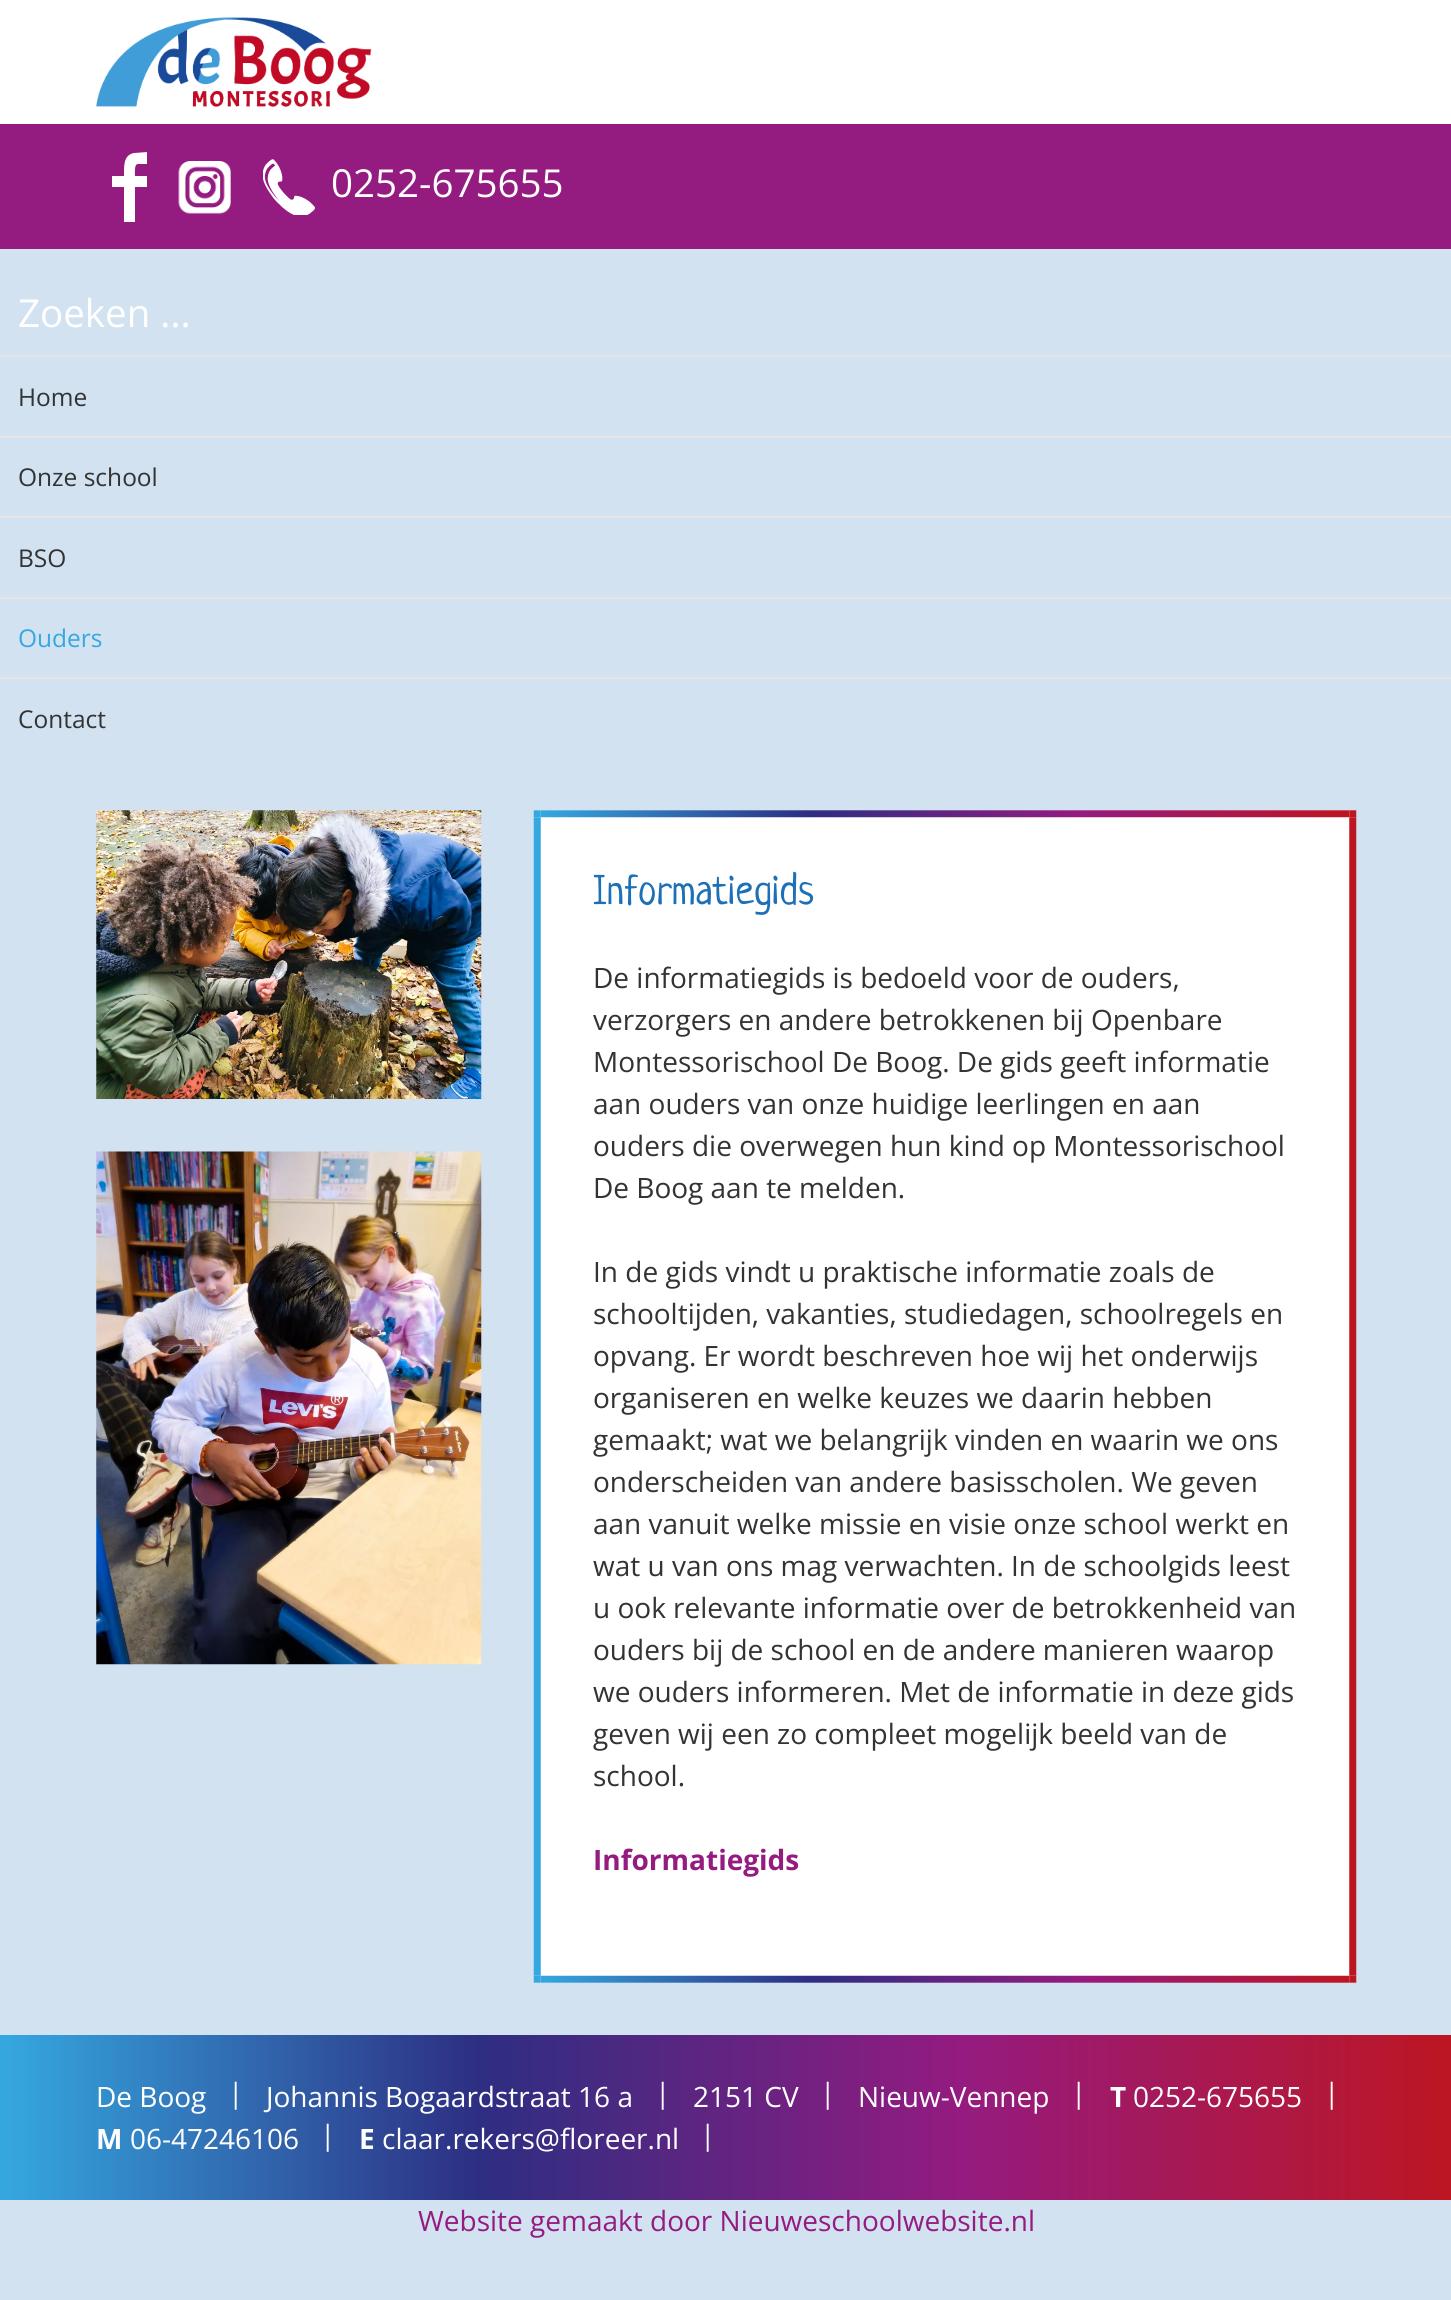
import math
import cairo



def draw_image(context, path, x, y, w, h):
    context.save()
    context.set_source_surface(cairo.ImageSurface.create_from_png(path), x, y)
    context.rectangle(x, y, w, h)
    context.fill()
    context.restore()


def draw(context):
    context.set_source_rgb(210 / 255, 226 / 255, 241 / 255)
    context.paint()
    context.set_source_rgb(1, 1, 1)
    context.rectangle(0, 0, 1451, 124)
    context.fill()
    draw_image(context, "images/1.png", 96, 17, 276, 90)
    context.set_source_rgb(148 / 255, 27 / 255, 128 / 255)
    context.rectangle(0, 124, 1451, 125)
    context.fill()
    context.set_source_rgb(1, 1, 1)
    context.new_path()
    context.move_to(138, 164)
    context.line_to(147, 164)
    context.line_to(147, 152)
    context.line_to(134, 153)
    context.curve_to(123, 155, 124, 167, 124, 176)
    context.line_to(112, 176)
    context.line_to(112, 187)
    context.line_to(124, 187)
    context.line_to(124, 222)
    context.line_to(135, 222)
    context.line_to(135, 187)
    context.line_to(147, 187)
    context.line_to(147, 176)
    context.line_to(135, 176)
    context.curve_to(135, 173, 134, 164, 138, 164)
    context.close_path()
    context.fill()
    draw_image(context, "images/2.png", 178, 161, 53, 53)
    draw_image(context, "images/3.png", 263, 159, 52, 56)
    context.set_source_rgb(229 / 255, 229 / 255, 229 / 255)
    context.rectangle(0, 355, 1451, 2)
    context.fill()
    context.rectangle(0, 436, 1451, 2)
    context.fill()
    context.rectangle(0, 516, 1451, 2)
    context.fill()
    context.rectangle(0, 597, 1451, 2)
    context.fill()
    context.rectangle(0, 677, 1451, 2)
    context.fill()
    draw_image(context, "images/4.png", 96, 810, 386, 289)
    draw_image(context, "images/5.png", 96, 1151, 386, 514)
    context.set_source_rgb(1, 1, 1)
    context.rectangle(534, 810, 822, 1173)
    context.fill()
    draw_image(context, "images/6.png", 533, 810, 824, 1173)
    gradient = cairo.LinearGradient(0, 2118, 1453, 2118)
    gradient.add_color_stop_rgba(0, 53 / 255, 168 / 255, 224 / 255, 1)
    gradient.add_color_stop_rgba(0.33, 45 / 255, 46 / 255, 130 / 255, 1)
    gradient.add_color_stop_rgba(0.66, 148 / 255, 27 / 255, 128 / 255, 1)
    gradient.add_color_stop_rgba(1, 189 / 255, 22 / 255, 34 / 255, 1)
    context.set_source(gradient)
    context.rectangle(0, 2035, 1451, 165)
    context.fill()
    context.select_font_face("Open Sans")
    context.set_font_size(38.5)
    context.set_source_rgb(1, 1, 1)
    context.move_to(331, 197)
    context.show_text("0252-675655")
    context.move_to(18, 327)
    context.show_text("Zoeken ...")
    context.set_font_size(24.5)
    context.set_source_rgb(51 / 255, 51 / 255, 51 / 255)
    context.move_to(18, 406)
    context.show_text("Home")
    context.move_to(18, 486)
    context.show_text("Onze school")
    context.move_to(18, 567)
    context.show_text("BSO")
    context.set_source_rgb(53 / 255, 168 / 255, 224 / 255)
    context.move_to(18, 647)
    context.show_text("Ouders")
    context.set_source_rgb(51 / 255, 51 / 255, 51 / 255)
    context.move_to(18, 728)
    context.show_text("Contact")
    context.select_font_face("Neucha")
    context.set_font_size(42)
    context.set_source_rgb(29 / 255, 112 / 255, 183 / 255)
    context.move_to(593, 904)
    context.show_text("Informatiegids")
    context.select_font_face("Open Sans")
    context.set_font_size(28)
    context.set_source_rgb(51 / 255, 51 / 255, 51 / 255)
    context.move_to(593, 988)
    context.show_text("De informatiegids is bedoeld voor de ouders,")
    context.move_to(593, 1030)
    context.show_text("verzorgers en andere betrokkenen bij Openbare")
    context.move_to(593, 1072)
    context.show_text("Montessorischool De Boog. De gids geeft informatie")
    context.move_to(593, 1114)
    context.show_text("aan ouders van onze huidige leerlingen en aan")
    context.move_to(593, 1156)
    context.show_text("ouders die overwegen hun kind op Montessorischool")
    context.move_to(593, 1198)
    context.show_text("De Boog aan te melden.")
    context.move_to(593, 1282)
    context.show_text("In de gids vindt u praktische informatie zoals de")
    context.move_to(593, 1324)
    context.show_text("schooltijden, vakanties, studiedagen, schoolregels en")
    context.move_to(593, 1366)
    context.show_text("opvang. Er wordt beschreven hoe wij het onderwijs")
    context.move_to(593, 1408)
    context.show_text("organiseren en welke keuzes we daarin hebben")
    context.move_to(593, 1450)
    context.show_text("gemaakt; wat we belangrijk vinden en waarin we ons")
    context.move_to(593, 1492)
    context.show_text("onderscheiden van andere basisscholen. We geven")
    context.move_to(593, 1534)
    context.show_text("aan vanuit welke missie en visie onze school werkt en")
    context.move_to(593, 1576)
    context.show_text("wat u van ons mag verwachten. In de schoolgids leest")
    context.move_to(593, 1618)
    context.show_text("u ook relevante informatie over de betrokkenheid van")
    context.move_to(593, 1660)
    context.show_text("ouders bij de school en de andere manieren waarop")
    context.move_to(593, 1702)
    context.show_text("we ouders informeren. Met de informatie in deze gids")
    context.move_to(593, 1744)
    context.show_text("geven wij een zo compleet mogelijk beeld van de")
    context.move_to(593, 1786)
    context.show_text("school.")
    context.select_font_face("Open Sans", cairo.FontSlant.NORMAL, cairo.FontWeight.BOLD)
    context.set_source_rgb(148 / 255, 27 / 255, 128 / 255)
    context.move_to(593, 1870)
    context.show_text("Informatiegids")
    context.select_font_face("Open Sans")
    context.set_source_rgb(1, 1, 1)
    context.move_to(96, 2107)
    context.show_text("De Boog")
    context.move_to(228, 2103)
    context.show_text("|")
    context.move_to(266, 2107)
    context.show_text("Johannis Bogaardstraat 16 a")
    context.move_to(655, 2103)
    context.show_text("|")
    context.move_to(693, 2107)
    context.show_text("2151 CV")
    context.move_to(820, 2103)
    context.show_text("|")
    context.move_to(858, 2107)
    context.show_text("Nieuw-Vennep")
    context.move_to(1071, 2103)
    context.show_text("|")
    context.select_font_face("Open Sans", cairo.FontSlant.NORMAL, cairo.FontWeight.BOLD)
    context.move_to(1110, 2107)
    context.show_text("T")
    context.select_font_face("Open Sans")
    context.move_to(1133, 2107)
    context.show_text("0252-675655")
    context.move_to(1324, 2103)
    context.show_text("|")
    context.select_font_face("Open Sans", cairo.FontSlant.NORMAL, cairo.FontWeight.BOLD)
    context.move_to(96, 2149)
    context.show_text("M")
    context.select_font_face("Open Sans")
    context.move_to(130, 2149)
    context.show_text("06-47246106")
    context.move_to(320, 2145)
    context.show_text("|")
    context.select_font_face("Open Sans", cairo.FontSlant.NORMAL, cairo.FontWeight.BOLD)
    context.move_to(359, 2149)
    context.show_text("E")
    context.select_font_face("Open Sans")
    context.move_to(382, 2149)
    context.show_text("claar.rekers@floreer.nl")
    context.move_to(700, 2145)
    context.show_text("|")
    context.set_source_rgb(148 / 255, 27 / 255, 128 / 255)
    context.move_to(418, 2231)
    context.show_text("Website gemaakt door Nieuweschoolwebsite.nl")


surface = cairo.ImageSurface(cairo.Format.RGB24, 1451, 2300)
context = cairo.Context(surface)
options = cairo.FontOptions()
options.set_hint_metrics(cairo.HintMetrics.OFF)
options.set_hint_style(cairo.HintStyle.NONE)
context.set_font_options(options)
context.set_miter_limit(4)
draw(context)
surface.write_to_png("out.png")
